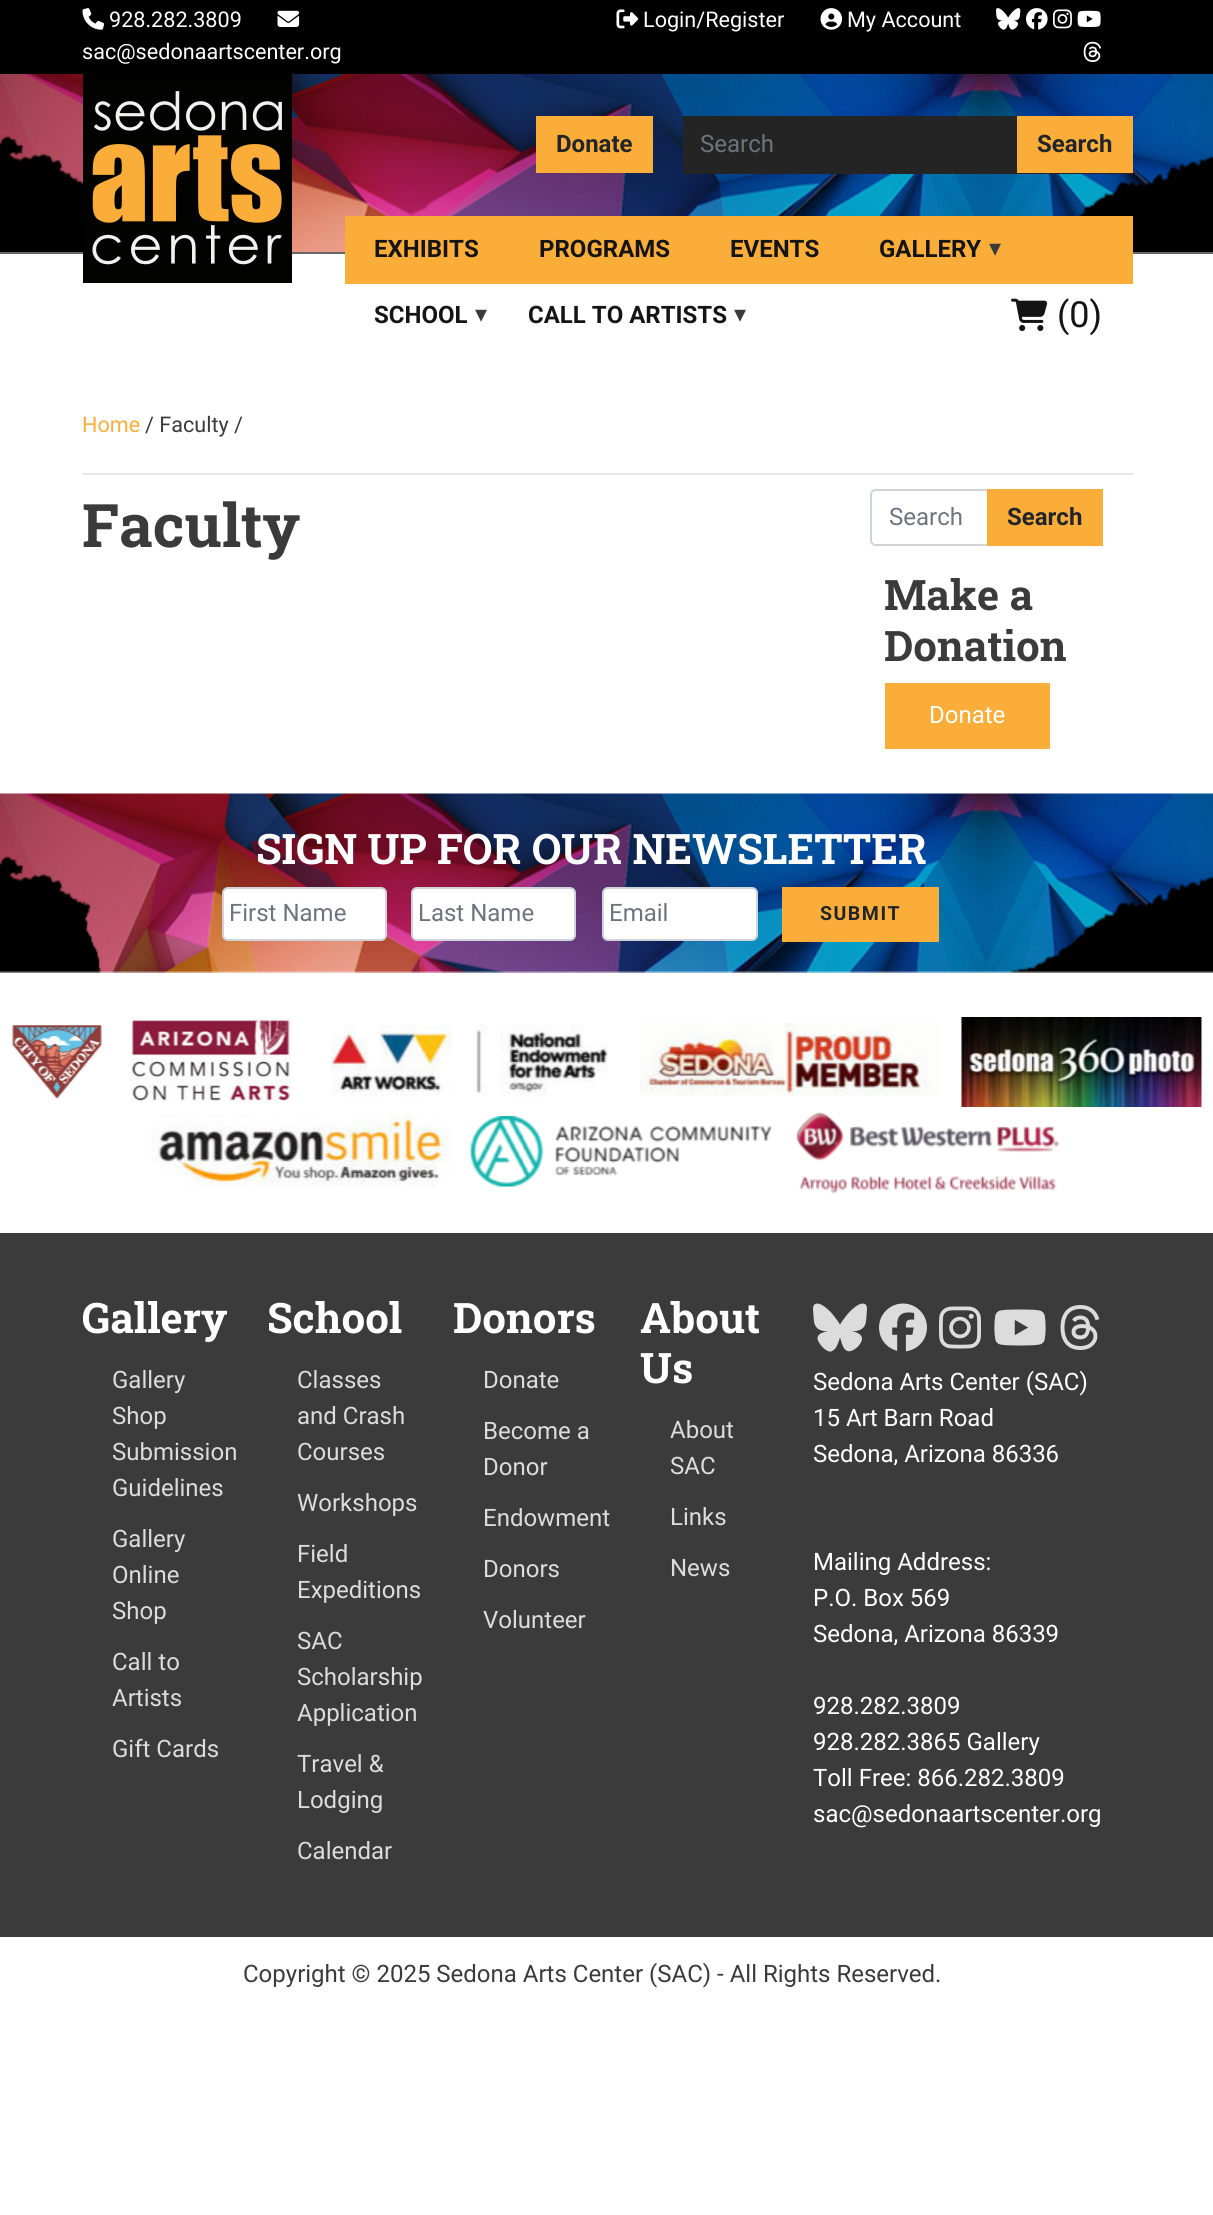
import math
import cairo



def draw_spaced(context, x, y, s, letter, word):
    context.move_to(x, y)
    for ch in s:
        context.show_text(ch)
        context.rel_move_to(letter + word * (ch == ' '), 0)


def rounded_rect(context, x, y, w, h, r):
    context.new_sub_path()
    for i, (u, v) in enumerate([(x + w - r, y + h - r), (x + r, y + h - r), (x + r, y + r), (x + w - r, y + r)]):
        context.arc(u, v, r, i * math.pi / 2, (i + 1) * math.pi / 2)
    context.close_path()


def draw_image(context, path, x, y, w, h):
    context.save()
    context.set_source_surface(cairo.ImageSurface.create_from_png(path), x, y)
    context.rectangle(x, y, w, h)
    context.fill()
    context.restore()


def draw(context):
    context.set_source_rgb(1, 1, 1)
    context.paint()
    context.set_source_rgb(0, 0, 0)
    context.rectangle(0, 0, 1213, 74)
    context.fill()
    draw_image(context, "images/1.png", 82, 8, 23, 22)
    draw_image(context, "images/2.png", 277, 10, 23, 17)
    draw_image(context, "images/3.png", 616, 9, 23, 20)
    draw_image(context, "images/4.png", 820, 8, 23, 22)
    draw_image(context, "images/5.png", 996, 8, 25, 22)
    draw_image(context, "images/6.png", 1026, 8, 22, 22)
    draw_image(context, "images/7.png", 1053, 9, 19, 20)
    draw_image(context, "images/8.png", 1077, 10, 24, 17)
    draw_image(context, "images/9.png", 1083, 41, 19, 21)
    draw_image(context, "images/10.png", 0, 74, 1213, 178)
    context.set_source_rgb(102 / 255, 102 / 255, 102 / 255)
    context.rectangle(0, 252, 1213, 2)
    context.fill()
    draw_image(context, "images/11.png", 83, 74, 209, 209)
    context.set_source_rgb(251 / 255, 173 / 255, 57 / 255)
    context.rectangle(536, 116, 117, 57)
    context.fill()
    context.set_source_rgb(36 / 255, 36 / 255, 36 / 255)
    context.rectangle(683, 116, 450, 58)
    context.fill()
    context.set_source_rgb(251 / 255, 173 / 255, 57 / 255)
    context.rectangle(1017, 116, 116, 57)
    context.fill()
    context.rectangle(345, 216, 788, 68)
    context.fill()
    draw_image(context, "images/12.png", 1011, 298, 37, 33)
    context.set_source_rgb(230 / 255, 230 / 255, 230 / 255)
    context.rectangle(83, 473, 1050, 2)
    context.fill()
    context.new_path()
    context.move_to(876, 490)
    context.line_to(988, 490)
    context.line_to(988, 545)
    context.line_to(876, 545)
    context.curve_to(873, 545, 871, 543, 871, 540)
    context.line_to(871, 495)
    context.curve_to(871, 492, 873, 490, 876, 490)
    context.close_path()
    context.set_source_rgb(206 / 255, 212 / 255, 218 / 255)
    context.stroke()
    context.set_source_rgb(251 / 255, 173 / 255, 57 / 255)
    context.rectangle(987, 489, 116, 57)
    context.fill()
    context.rectangle(885, 683, 165, 66)
    context.fill()
    draw_image(context, "images/13.png", 0, 793, 1213, 180)
    context.set_source_rgb(1, 1, 1)
    rounded_rect(context, 223, 888, 163, 52, 5)
    context.fill_preserve()
    context.set_source_rgb(206 / 255, 212 / 255, 218 / 255)
    context.stroke()
    context.set_source_rgb(1, 1, 1)
    rounded_rect(context, 412, 888, 163, 52, 5)
    context.fill_preserve()
    context.set_source_rgb(206 / 255, 212 / 255, 218 / 255)
    context.stroke()
    context.set_source_rgb(1, 1, 1)
    rounded_rect(context, 603, 888, 154, 52, 5)
    context.fill_preserve()
    context.set_source_rgb(206 / 255, 212 / 255, 218 / 255)
    context.stroke()
    context.set_source_rgb(251 / 255, 173 / 255, 57 / 255)
    context.rectangle(782, 887, 157, 55)
    context.fill()
    draw_image(context, "images/14.png", 11, 1024, 92, 76)
    draw_image(context, "images/15.png", 130, 1017, 162, 85)
    draw_image(context, "images/16.png", 331, 1024, 278, 73)
    draw_image(context, "images/17.png", 640, 1023, 300, 73)
    draw_image(context, "images/18.png", 961, 1017, 241, 90)
    draw_image(context, "images/19.png", 151, 1114, 300, 73)
    draw_image(context, "images/20.png", 470, 1116, 302, 71)
    draw_image(context, "images/21.png", 796, 1112, 264, 82)
    context.set_source_rgb(59 / 255, 59 / 255, 59 / 255)
    context.rectangle(0, 1233, 1213, 704)
    context.fill()
    draw_image(context, "images/22.png", 813, 1303, 54, 49)
    draw_image(context, "images/23.png", 879, 1303, 48, 49)
    draw_image(context, "images/24.png", 939, 1306, 42, 43)
    draw_image(context, "images/25.png", 994, 1309, 52, 37)
    draw_image(context, "images/26.png", 1060, 1305, 40, 45)
    context.select_font_face("Roboto")
    context.set_font_size(21.6)
    context.set_source_rgb(1, 1, 1)
    context.move_to(109, 27)
    context.show_text("928.282.3809")
    context.move_to(82, 59)
    context.show_text("sac@sedonaartscenter.org")
    context.move_to(643, 27)
    context.show_text("Login/Register")
    context.move_to(847, 27)
    context.show_text("My Account")
    context.select_font_face("Roboto", cairo.FontSlant.NORMAL, cairo.FontWeight.BOLD)
    context.set_font_size(24)
    context.set_source_rgb(33 / 255, 37 / 255, 41 / 255)
    context.move_to(556, 152)
    context.show_text("Donate")
    context.select_font_face("Roboto")
    context.set_source_rgb(108 / 255, 117 / 255, 125 / 255)
    context.move_to(700, 152)
    context.show_text("Search")
    context.select_font_face("Roboto", cairo.FontSlant.NORMAL, cairo.FontWeight.BOLD)
    context.set_source_rgb(33 / 255, 37 / 255, 41 / 255)
    context.move_to(1037, 152)
    context.show_text("Search")
    context.set_source_rgb(20 / 255, 20 / 255, 20 / 255)
    context.move_to(374, 257)
    context.show_text("EXHIBITS")
    context.move_to(539, 257)
    context.show_text("PROGRAMS")
    context.move_to(730, 257)
    context.show_text("EVENTS")
    context.move_to(879, 257)
    context.show_text("GALLERY")
    context.select_font_face("DejaVu Sans")
    context.set_source_rgb(59 / 255, 59 / 255, 59 / 255)
    context.move_to(989, 256)
    context.show_text("▾")
    context.select_font_face("Roboto", cairo.FontSlant.NORMAL, cairo.FontWeight.BOLD)
    context.set_source_rgb(20 / 255, 20 / 255, 20 / 255)
    context.move_to(374, 323)
    context.show_text("SCHOOL")
    context.select_font_face("DejaVu Sans")
    context.set_source_rgb(59 / 255, 59 / 255, 59 / 255)
    context.move_to(475, 322)
    context.show_text("▾")
    context.select_font_face("Roboto", cairo.FontSlant.NORMAL, cairo.FontWeight.BOLD)
    context.set_source_rgb(20 / 255, 20 / 255, 20 / 255)
    context.move_to(528, 323)
    context.show_text("CALL TO ARTISTS")
    context.select_font_face("DejaVu Sans")
    context.set_source_rgb(59 / 255, 59 / 255, 59 / 255)
    context.move_to(734, 322)
    context.show_text("▾")
    context.select_font_face("Roboto")
    context.set_font_size(36)
    context.set_source_rgb(20 / 255, 20 / 255, 20 / 255)
    context.move_to(1057, 327)
    context.show_text("(0)")
    context.set_font_size(21.6)
    context.set_source_rgb(251 / 255, 173 / 255, 57 / 255)
    context.move_to(82, 432)
    context.show_text("Home")
    context.set_source_rgb(59 / 255, 59 / 255, 59 / 255)
    context.move_to(145, 432)
    context.show_text("/ Faculty /")
    context.select_font_face("Roboto Slab", cairo.FontSlant.NORMAL, cairo.FontWeight.BOLD)
    context.set_font_size(60)
    context.move_to(82, 547)
    context.show_text("Faculty")
    context.select_font_face("Roboto")
    context.set_font_size(24)
    context.set_source_rgb(108 / 255, 117 / 255, 125 / 255)
    context.move_to(889, 525)
    context.show_text("Search")
    context.select_font_face("Roboto", cairo.FontSlant.NORMAL, cairo.FontWeight.BOLD)
    context.set_source_rgb(33 / 255, 37 / 255, 41 / 255)
    context.move_to(1007, 525)
    context.show_text("Search")
    context.select_font_face("Roboto Slab", cairo.FontSlant.NORMAL, cairo.FontWeight.BOLD)
    context.set_font_size(42)
    context.set_source_rgb(59 / 255, 59 / 255, 59 / 255)
    context.move_to(884, 610)
    context.show_text("Make a")
    context.move_to(884, 661)
    context.show_text("Donation")
    context.select_font_face("Roboto")
    context.set_font_size(24)
    context.set_source_rgb(1, 1, 1)
    context.move_to(929, 723)
    context.show_text("Donate")
    context.select_font_face("Roboto Slab", cairo.FontSlant.NORMAL, cairo.FontWeight.BOLD)
    context.set_font_size(42)
    context.move_to(256, 864)
    context.show_text("SIGN UP FOR OUR NEWSLETTER")
    context.select_font_face("Roboto")
    context.set_font_size(24)
    context.set_source_rgb(108 / 255, 117 / 255, 125 / 255)
    context.move_to(229, 921)
    context.show_text("First Name")
    context.move_to(418, 921)
    context.show_text("Last Name")
    context.move_to(609, 921)
    context.show_text("Email")
    context.select_font_face("Roboto", cairo.FontSlant.NORMAL, cairo.FontWeight.BOLD)
    context.set_font_size(19.5)
    context.set_source_rgb(33 / 255, 37 / 255, 41 / 255)
    draw_spaced(context, 820, 920, "SUBMIT", 1.5, 0)
    context.select_font_face("Roboto Slab", cairo.FontSlant.NORMAL, cairo.FontWeight.BOLD)
    context.set_font_size(42)
    context.set_source_rgb(1, 1, 1)
    context.move_to(82, 1333)
    context.show_text("Gallery")
    context.select_font_face("Roboto")
    context.set_font_size(24)
    context.set_source_rgb(220 / 255, 220 / 255, 220 / 255)
    context.move_to(112, 1388)
    context.show_text("Gallery")
    context.move_to(112, 1424)
    context.show_text("Shop")
    context.move_to(112, 1460)
    context.show_text("Submission")
    context.move_to(112, 1496)
    context.show_text("Guidelines")
    context.move_to(112, 1547)
    context.show_text("Gallery")
    context.move_to(112, 1583)
    context.show_text("Online")
    context.move_to(112, 1619)
    context.show_text("Shop")
    context.move_to(112, 1670)
    context.show_text("Call to")
    context.move_to(112, 1706)
    context.show_text("Artists")
    context.move_to(112, 1757)
    context.show_text("Gift Cards")
    context.select_font_face("Roboto Slab", cairo.FontSlant.NORMAL, cairo.FontWeight.BOLD)
    context.set_font_size(42)
    context.set_source_rgb(1, 1, 1)
    context.move_to(267, 1333)
    context.show_text("School")
    context.select_font_face("Roboto")
    context.set_font_size(24)
    context.set_source_rgb(220 / 255, 220 / 255, 220 / 255)
    context.move_to(297, 1388)
    context.show_text("Classes")
    context.move_to(297, 1424)
    context.show_text("and Crash")
    context.move_to(297, 1460)
    context.show_text("Courses")
    context.move_to(297, 1511)
    context.show_text("Workshops")
    context.move_to(297, 1562)
    context.show_text("Field")
    context.move_to(297, 1598)
    context.show_text("Expeditions")
    context.move_to(297, 1649)
    context.show_text("SAC")
    context.move_to(297, 1685)
    context.show_text("Scholarship")
    context.move_to(297, 1721)
    context.show_text("Application")
    context.move_to(297, 1772)
    context.show_text("Travel &")
    context.move_to(297, 1808)
    context.show_text("Lodging")
    context.move_to(297, 1859)
    context.show_text("Calendar")
    context.select_font_face("Roboto Slab", cairo.FontSlant.NORMAL, cairo.FontWeight.BOLD)
    context.set_font_size(42)
    context.set_source_rgb(1, 1, 1)
    context.move_to(453, 1333)
    context.show_text("Donors")
    context.select_font_face("Roboto")
    context.set_font_size(24)
    context.set_source_rgb(220 / 255, 220 / 255, 220 / 255)
    context.move_to(483, 1388)
    context.show_text("Donate")
    context.move_to(483, 1439)
    context.show_text("Become a")
    context.move_to(483, 1475)
    context.show_text("Donor")
    context.move_to(483, 1526)
    context.show_text("Endowment")
    context.move_to(483, 1577)
    context.show_text("Donors")
    context.move_to(483, 1628)
    context.show_text("Volunteer")
    context.select_font_face("Roboto Slab", cairo.FontSlant.NORMAL, cairo.FontWeight.BOLD)
    context.set_font_size(42)
    context.set_source_rgb(1, 1, 1)
    context.move_to(640, 1333)
    context.show_text("About")
    context.move_to(640, 1383)
    context.show_text("Us")
    context.select_font_face("Roboto")
    context.set_font_size(24)
    context.set_source_rgb(220 / 255, 220 / 255, 220 / 255)
    context.move_to(670, 1438)
    context.show_text("About")
    context.move_to(670, 1474)
    context.show_text("SAC")
    context.move_to(670, 1525)
    context.show_text("Links")
    context.move_to(670, 1576)
    context.show_text("News")
    context.set_source_rgb(1, 1, 1)
    context.move_to(813, 1390)
    context.show_text("Sedona Arts Center (SAC)")
    context.move_to(813, 1426)
    context.show_text("15 Art Barn Road")
    context.move_to(813, 1462)
    context.show_text("Sedona, Arizona 86336")
    context.move_to(813, 1570)
    context.show_text("Mailing Address:")
    context.move_to(813, 1606)
    context.show_text("P.O. Box 569")
    context.move_to(813, 1642)
    context.show_text("Sedona, Arizona 86339")
    context.move_to(813, 1714)
    context.show_text("928.282.3809")
    context.move_to(813, 1750)
    context.show_text("928.282.3865 Gallery")
    context.move_to(813, 1786)
    context.show_text("Toll Free: 866.282.3809")
    context.move_to(813, 1822)
    context.show_text("sac@sedonaartscenter.org")
    context.set_source_rgb(59 / 255, 59 / 255, 59 / 255)
    context.move_to(243, 1982)
    context.show_text("Copyright © 2025 Sedona Arts Center (SAC) - All Rights Reserved.")


surface = cairo.ImageSurface(cairo.Format.RGB24, 1213, 2215)
context = cairo.Context(surface)
options = cairo.FontOptions()
options.set_hint_metrics(cairo.HintMetrics.OFF)
options.set_hint_style(cairo.HintStyle.NONE)
context.set_font_options(options)
context.set_miter_limit(4)
draw(context)
surface.write_to_png("out.png")
